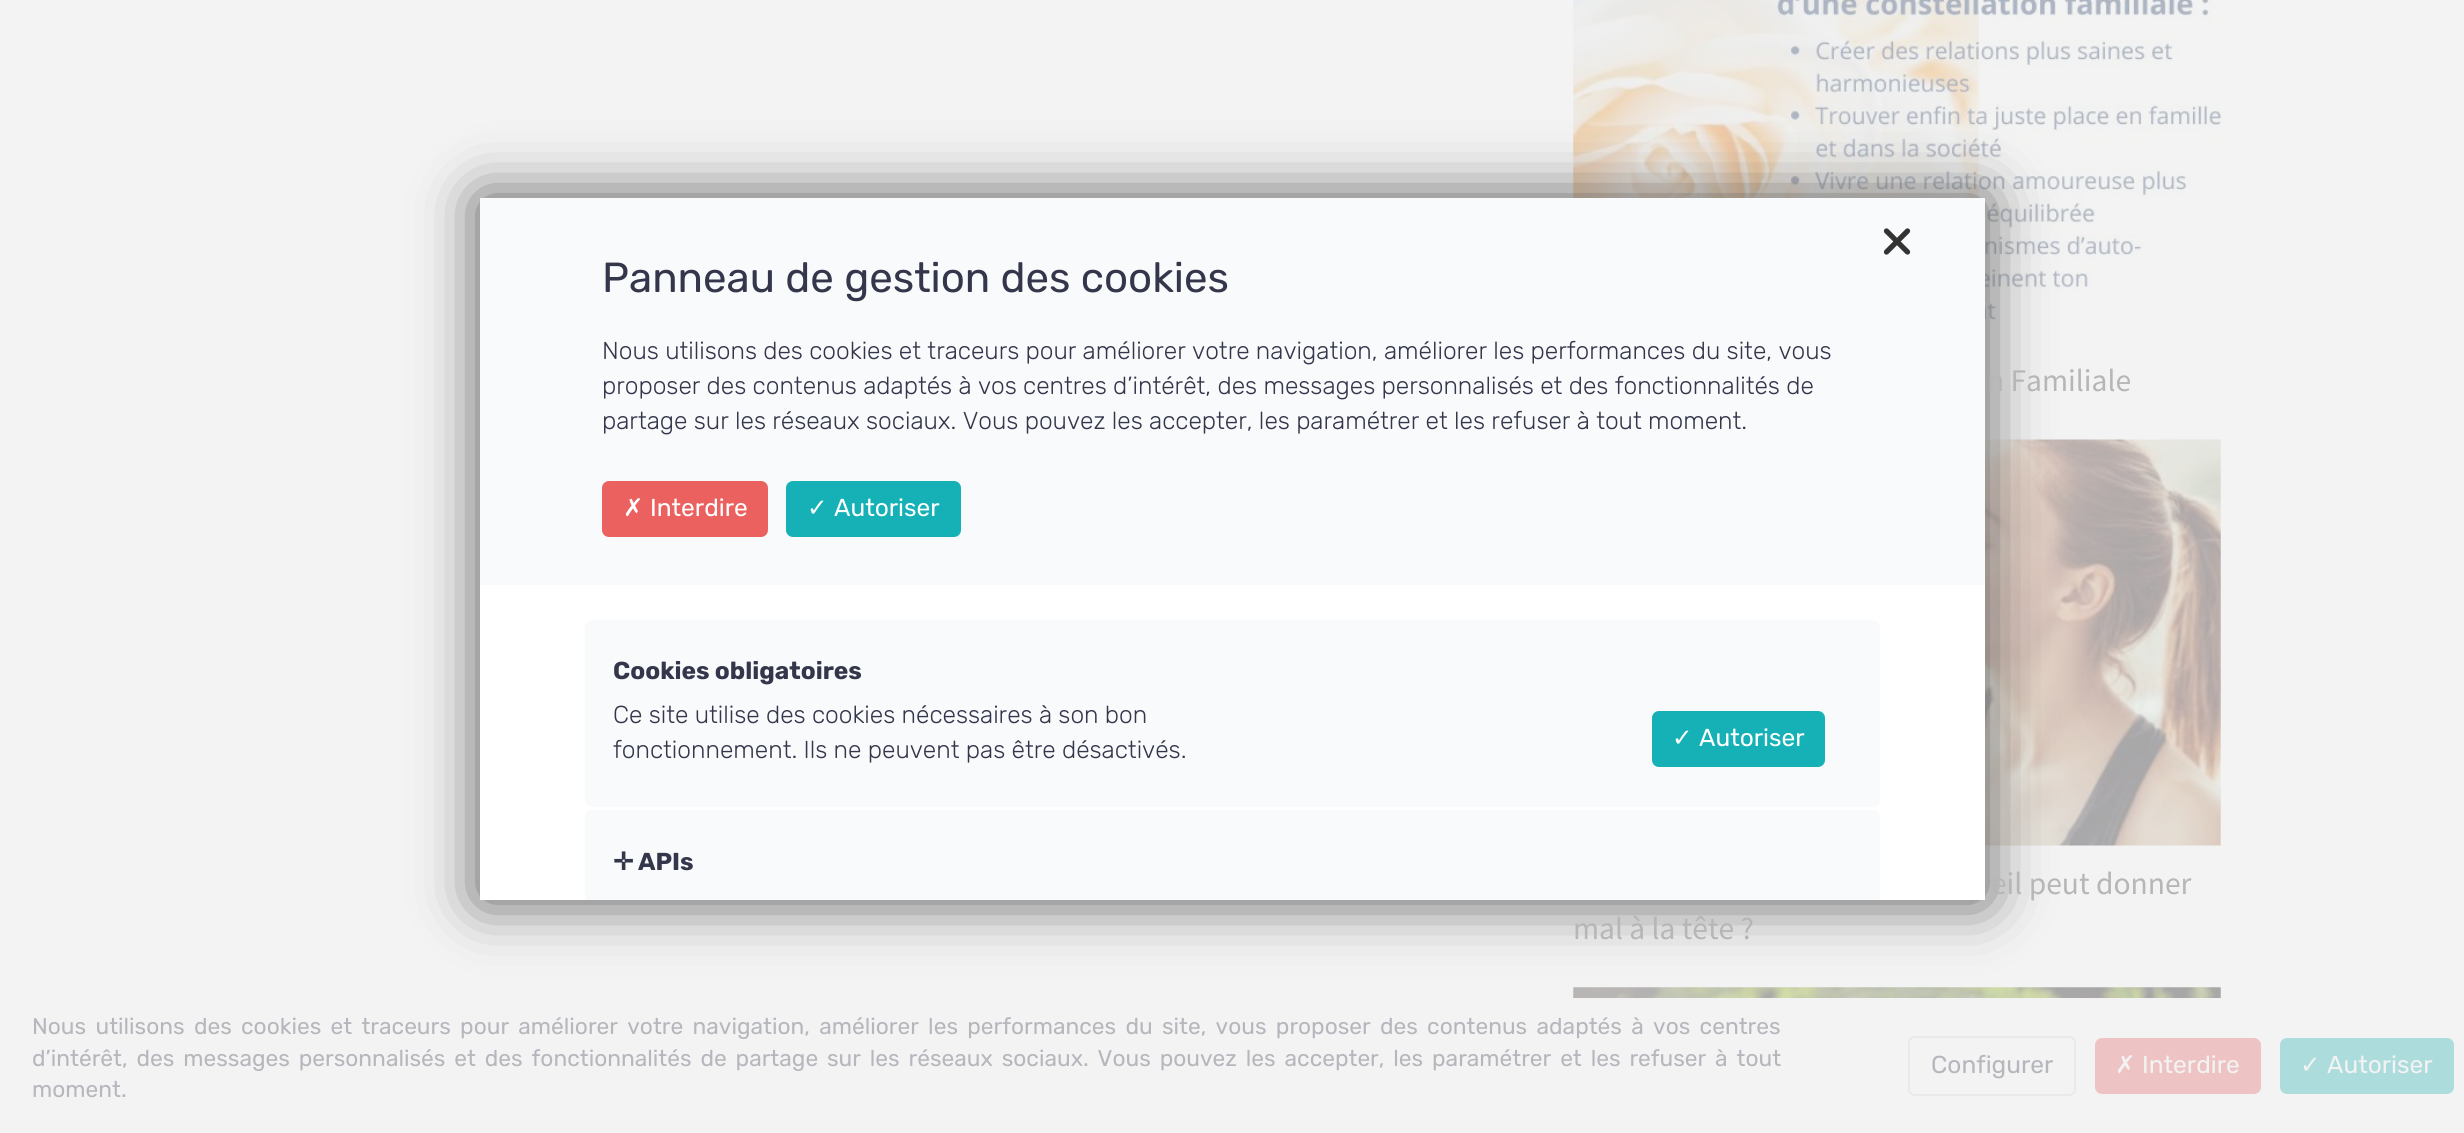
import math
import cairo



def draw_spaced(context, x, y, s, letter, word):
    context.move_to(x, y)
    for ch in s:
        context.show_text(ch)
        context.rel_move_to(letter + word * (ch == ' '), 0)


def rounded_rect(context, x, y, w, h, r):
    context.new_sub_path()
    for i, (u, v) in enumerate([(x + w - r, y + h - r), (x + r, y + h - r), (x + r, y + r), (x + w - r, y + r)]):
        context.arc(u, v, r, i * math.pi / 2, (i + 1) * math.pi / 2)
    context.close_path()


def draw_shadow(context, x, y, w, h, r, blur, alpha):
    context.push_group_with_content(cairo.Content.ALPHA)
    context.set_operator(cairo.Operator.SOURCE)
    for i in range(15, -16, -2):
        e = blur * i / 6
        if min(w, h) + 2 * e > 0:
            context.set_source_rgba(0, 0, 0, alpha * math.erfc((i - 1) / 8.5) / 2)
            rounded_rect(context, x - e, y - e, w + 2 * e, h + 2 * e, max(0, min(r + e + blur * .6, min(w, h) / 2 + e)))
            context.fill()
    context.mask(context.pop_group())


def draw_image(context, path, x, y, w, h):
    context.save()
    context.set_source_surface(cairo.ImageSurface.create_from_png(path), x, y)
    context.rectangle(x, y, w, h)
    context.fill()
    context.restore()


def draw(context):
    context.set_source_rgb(243 / 255, 243 / 255, 243 / 255)
    context.paint()
    draw_image(context, "images/2.png", 1573, 0, 648, 344)
    draw_image(context, "images/3.png", 1985, 439, 236, 407)
    draw_image(context, "images/4.png", 1573, 987, 648, 11)
    context.set_source_rgb(87 / 255, 87 / 255, 87 / 255)
    draw_shadow(context, 480, 198, 1505, 702, 0, 30.5, 1)
    context.set_source_rgb(249 / 255, 250 / 255, 251 / 255)
    context.rectangle(480, 198, 1505, 387)
    context.fill()
    draw_image(context, "images/1.png", 1883, 228, 28, 27)
    context.set_source_rgb(235 / 255, 97 / 255, 95 / 255)
    rounded_rect(context, 602, 481, 166, 56, 7)
    context.fill()
    context.set_source_rgb(21 / 255, 177 / 255, 182 / 255)
    rounded_rect(context, 786, 481, 175, 56, 7)
    context.fill()
    context.set_source_rgb(1, 1, 1)
    context.rectangle(480, 585, 1505, 315)
    context.fill()
    context.set_source_rgb(249 / 255, 250 / 255, 251 / 255)
    rounded_rect(context, 585, 620, 1295, 187, 7)
    context.fill()
    context.set_source_rgb(21 / 255, 177 / 255, 182 / 255)
    rounded_rect(context, 1652, 711, 173, 56, 7)
    context.fill()
    context.set_source_rgb(249 / 255, 250 / 255, 251 / 255)
    context.new_path()
    context.move_to(592, 810)
    context.line_to(1873, 810)
    context.curve_to(1877, 810, 1880, 813, 1880, 817)
    context.line_to(1880, 900)
    context.line_to(585, 900)
    context.line_to(585, 817)
    context.curve_to(585, 813, 588, 810, 592, 810)
    context.close_path()
    context.fill()
    rounded_rect(context, 1909, 1037, 166, 58, 6)
    context.set_source_rgb(233 / 255, 233 / 255, 234 / 255)
    context.stroke()
    context.set_source_rgb(237 / 255, 196 / 255, 195 / 255)
    rounded_rect(context, 2095, 1038, 166, 56, 7)
    context.fill()
    context.set_source_rgb(173 / 255, 220 / 255, 221 / 255)
    rounded_rect(context, 2280, 1038, 174, 56, 7)
    context.fill()
    context.select_font_face("Rubik")
    context.set_font_size(42)
    context.set_source_rgb(52 / 255, 54 / 255, 75 / 255)
    context.move_to(602, 292)
    context.show_text("Panneau de gestion des cookies")
    context.select_font_face("Rubik Light")
    context.set_font_size(24.5)
    context.move_to(602, 359)
    context.show_text("Nous utilisons des cookies et traceurs pour améliorer votre navigation, améliorer les performances du site, vous")
    context.move_to(602, 394)
    context.show_text("proposer des contenus adaptés à vos centres d’intérêt, des messages personnalisés et des fonctionnalités de")
    context.move_to(602, 429)
    context.show_text("partage sur les réseaux sociaux. Vous pouvez les accepter, les paramétrer et les refuser à tout moment.")
    context.select_font_face("DejaVu Sans")
    context.set_source_rgb(1, 1, 1)
    context.move_to(623, 516)
    context.show_text("✗")
    context.select_font_face("Rubik")
    context.move_to(650, 516)
    context.show_text("Interdire")
    context.select_font_face("DejaVu Sans")
    context.move_to(807, 516)
    context.show_text("✓")
    context.select_font_face("Rubik")
    context.move_to(834, 516)
    context.show_text("Autoriser")
    context.select_font_face("Rubik", cairo.FontSlant.NORMAL, cairo.FontWeight.BOLD)
    context.set_source_rgb(52 / 255, 54 / 255, 75 / 255)
    context.move_to(613, 679)
    context.show_text("Cookies obligatoires")
    context.select_font_face("Rubik Light")
    context.move_to(613, 723)
    context.show_text("Ce site utilise des cookies nécessaires à son bon")
    context.move_to(613, 758)
    context.show_text("fonctionnement. Ils ne peuvent pas être désactivés.")
    context.select_font_face("DejaVu Sans")
    context.set_source_rgb(1, 1, 1)
    context.move_to(1672, 746)
    context.show_text("✓")
    context.select_font_face("Rubik")
    context.move_to(1699, 746)
    context.show_text("Autoriser")
    context.select_font_face("DejaVu Sans", cairo.FontSlant.NORMAL, cairo.FontWeight.BOLD)
    context.set_source_rgb(52 / 255, 54 / 255, 75 / 255)
    context.move_to(613, 870)
    context.show_text("✛")
    context.select_font_face("Rubik", cairo.FontSlant.NORMAL, cairo.FontWeight.BOLD)
    context.move_to(638, 870)
    context.show_text("APIs")
    context.select_font_face("Rubik")
    context.set_font_size(22.75)
    context.set_source_rgb(182 / 255, 183 / 255, 189 / 255)
    draw_spaced(context, 32, 1034, "Nous utilisons des cookies et traceurs pour améliorer votre navigation, améliorer les performances du site, vous proposer des contenus adaptés à vos centres", 0, 3.7)
    draw_spaced(context, 32, 1066, "d’intérêt, des messages personnalisés et des fonctionnalités de partage sur les réseaux sociaux. Vous pouvez les accepter, les paramétrer et les refuser à tout", 0, 3.3)
    context.move_to(32, 1097)
    context.show_text("moment.")
    context.set_font_size(24.5)
    context.move_to(1931, 1073)
    context.show_text("Configurer")
    context.select_font_face("DejaVu Sans")
    context.set_source_rgb(243 / 255, 243 / 255, 243 / 255)
    context.move_to(2115, 1073)
    context.show_text("✗")
    context.select_font_face("Rubik")
    context.move_to(2142, 1073)
    context.show_text("Interdire")
    context.select_font_face("DejaVu Sans")
    context.move_to(2300, 1073)
    context.show_text("✓")
    context.select_font_face("Rubik")
    context.move_to(2327, 1073)
    context.show_text("Autoriser")
    context.select_font_face("Mada")
    context.set_font_size(31.5)
    context.set_source_rgb(182 / 255, 182 / 255, 182 / 255)
    context.move_to(1987, 391)
    context.show_text("n Familiale")
    context.move_to(1991, 894)
    context.show_text("eil peut donner")
    context.move_to(1573, 939)
    context.show_text("mal à la tête ?")


surface = cairo.ImageSurface(cairo.Format.RGB24, 2464, 1133)
context = cairo.Context(surface)
options = cairo.FontOptions()
options.set_hint_metrics(cairo.HintMetrics.OFF)
options.set_hint_style(cairo.HintStyle.NONE)
context.set_font_options(options)
context.set_miter_limit(4)
draw(context)
surface.write_to_png("out.png")
